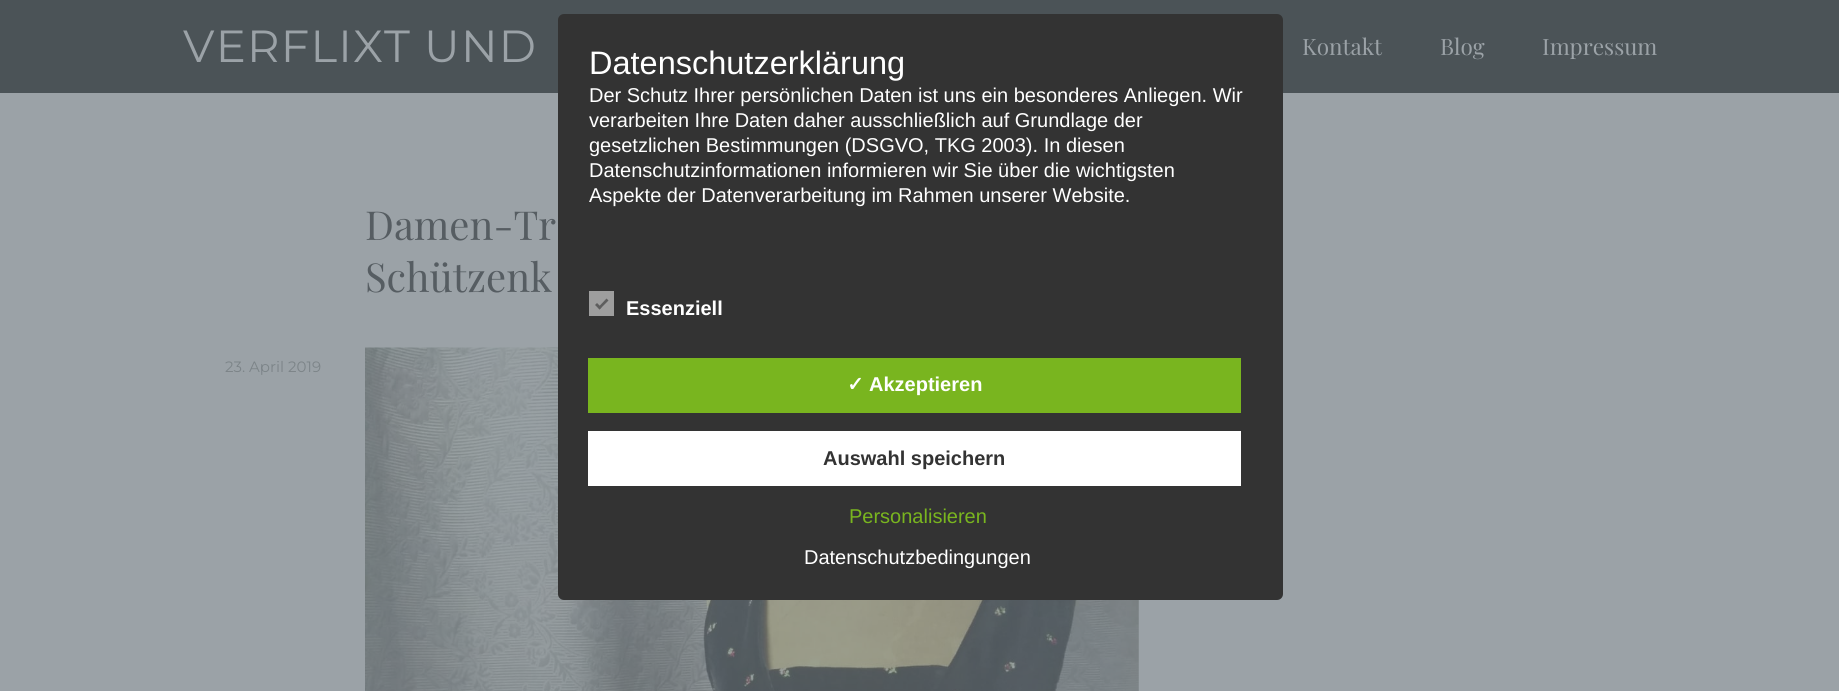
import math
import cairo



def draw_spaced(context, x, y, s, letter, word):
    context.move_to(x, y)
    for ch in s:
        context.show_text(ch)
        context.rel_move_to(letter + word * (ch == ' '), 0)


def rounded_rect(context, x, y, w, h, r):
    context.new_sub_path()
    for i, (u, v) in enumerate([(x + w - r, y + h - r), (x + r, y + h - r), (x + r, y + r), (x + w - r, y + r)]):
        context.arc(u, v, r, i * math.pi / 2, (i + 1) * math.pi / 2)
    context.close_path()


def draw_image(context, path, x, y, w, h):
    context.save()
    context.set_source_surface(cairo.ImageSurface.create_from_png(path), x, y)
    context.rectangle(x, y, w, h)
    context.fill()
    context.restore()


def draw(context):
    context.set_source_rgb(155 / 255, 162 / 255, 167 / 255)
    context.paint()
    context.set_source_rgb(75 / 255, 83 / 255, 87 / 255)
    context.rectangle(0, 0, 1839, 93)
    context.fill()
    draw_image(context, "images/1.png", 365, 347, 774, 344)
    context.set_source_rgb(51 / 255, 51 / 255, 51 / 255)
    rounded_rect(context, 558, 14, 725, 586, 6)
    context.fill()
    context.set_source_rgb(158 / 255, 158 / 255, 158 / 255)
    context.rectangle(589, 291, 25, 25)
    context.fill()
    context.set_source_rgb(94 / 255, 94 / 255, 94 / 255)
    context.new_path()
    context.move_to(606.5, 298.5)
    context.line_to(608.5, 300.5)
    context.line_to(599.5, 309.5)
    context.line_to(598, 307.5)
    context.close_path()
    context.fill()
    context.new_path()
    context.move_to(597, 303)
    context.line_to(601.5, 307.5)
    context.line_to(599.5, 309.5)
    context.line_to(595, 305)
    context.close_path()
    context.fill()
    context.set_source_rgb(121 / 255, 181 / 255, 31 / 255)
    context.rectangle(588, 358, 653, 55)
    context.fill()
    context.set_source_rgb(1, 1, 1)
    context.rectangle(588, 431, 653, 55)
    context.fill()
    context.select_font_face("Montserrat Thin")
    context.set_font_size(45)
    context.set_source_rgb(155 / 255, 162 / 255, 167 / 255)
    draw_spaced(context, 183, 62, "VERFLIXT UND", 1.25, 0)
    context.select_font_face("Playfair Display")
    context.set_font_size(22.5)
    context.move_to(1302, 55)
    context.show_text("Kontakt")
    context.move_to(1440, 55)
    context.show_text("Blog")
    context.move_to(1542, 55)
    context.show_text("Impressum")
    context.set_font_size(40)
    context.set_source_rgb(86 / 255, 93 / 255, 98 / 255)
    context.move_to(365, 240)
    context.show_text("Damen-Tr")
    context.move_to(365, 292)
    context.show_text("Schützenk")
    context.select_font_face("Montserrat Thin")
    context.set_font_size(15)
    context.set_source_rgb(124 / 255, 132 / 255, 136 / 255)
    context.move_to(225, 372)
    context.show_text("23. April 2019")
    context.select_font_face("Liberation Sans")
    context.set_font_size(32.5)
    context.set_source_rgb(1, 1, 1)
    context.move_to(589, 74)
    context.show_text("Datenschutzerklärung")
    context.set_font_size(20)
    context.move_to(589, 102)
    context.show_text("Der Schutz Ihrer persönlichen Daten ist uns ein besonderes Anliegen. Wir")
    context.move_to(589, 127)
    context.show_text("verarbeiten Ihre Daten daher ausschließlich auf Grundlage der")
    context.move_to(589, 152)
    context.show_text("gesetzlichen Bestimmungen (DSGVO, TKG 2003). In diesen")
    context.move_to(589, 177)
    context.show_text("Datenschutzinformationen informieren wir Sie über die wichtigsten")
    context.move_to(589, 202)
    context.show_text("Aspekte der Datenverarbeitung im Rahmen unserer Website.")
    context.select_font_face("Liberation Sans", cairo.FontSlant.NORMAL, cairo.FontWeight.BOLD)
    context.move_to(626, 315)
    context.show_text("Essenziell")
    context.select_font_face("DejaVu Sans", cairo.FontSlant.NORMAL, cairo.FontWeight.BOLD)
    context.move_to(847, 391)
    context.show_text("✓")
    context.select_font_face("Liberation Sans", cairo.FontSlant.NORMAL, cairo.FontWeight.BOLD)
    context.move_to(869, 391)
    context.show_text("Akzeptieren")
    context.set_source_rgb(51 / 255, 51 / 255, 51 / 255)
    context.move_to(823, 465)
    context.show_text("Auswahl speichern")
    context.select_font_face("Liberation Sans")
    context.set_source_rgb(121 / 255, 181 / 255, 31 / 255)
    context.move_to(849, 523)
    context.show_text("Personalisieren")
    context.set_source_rgb(1, 1, 1)
    context.move_to(804, 564)
    context.show_text("Datenschutzbedingungen")


surface = cairo.ImageSurface(cairo.Format.RGB24, 1839, 691)
context = cairo.Context(surface)
options = cairo.FontOptions()
options.set_hint_metrics(cairo.HintMetrics.OFF)
options.set_hint_style(cairo.HintStyle.NONE)
context.set_font_options(options)
context.set_miter_limit(4)
draw(context)
surface.write_to_png("out.png")
